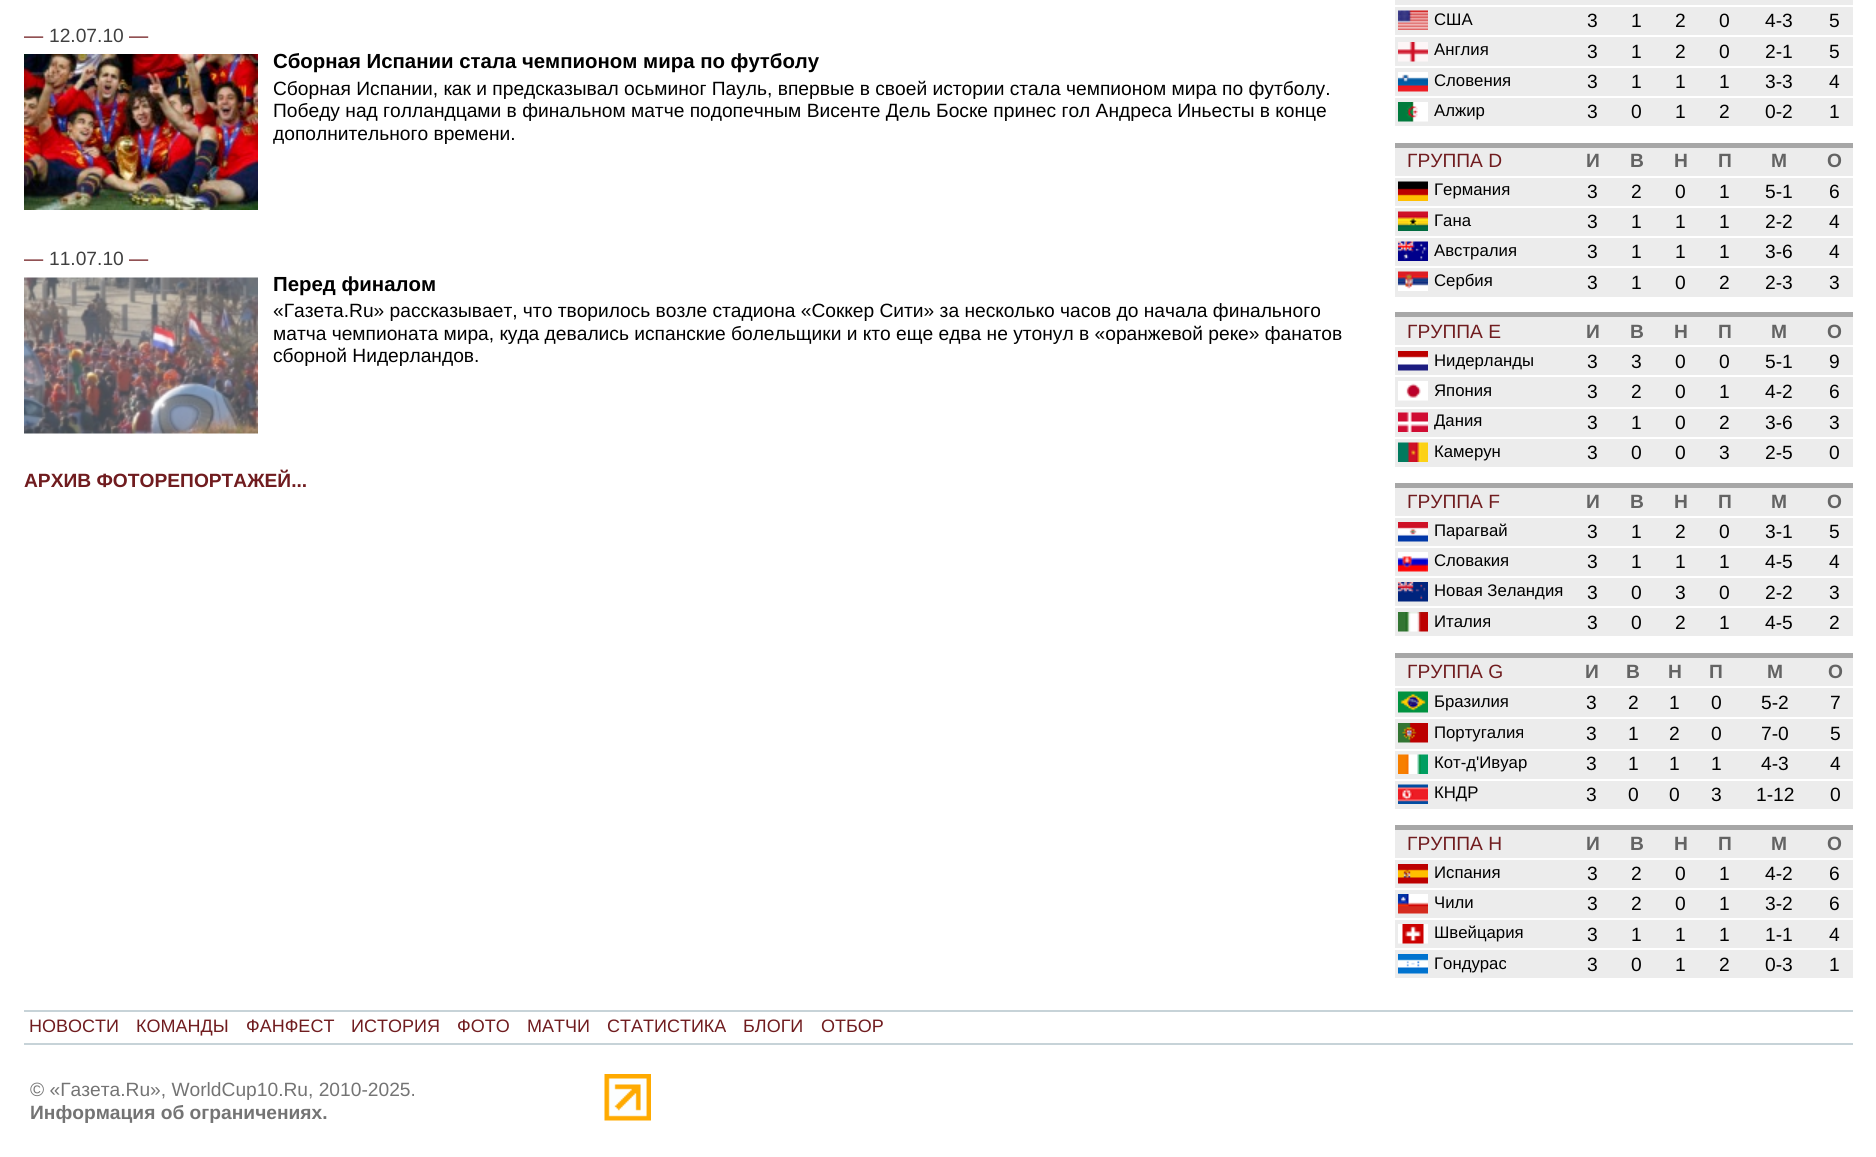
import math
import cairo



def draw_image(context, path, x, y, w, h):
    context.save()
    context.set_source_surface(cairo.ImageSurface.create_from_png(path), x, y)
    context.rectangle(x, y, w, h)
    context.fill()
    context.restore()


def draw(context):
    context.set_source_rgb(1, 1, 1)
    context.paint()
    draw_image(context, "images/1.png", 24, 54, 234, 156)
    draw_image(context, "images/2.png", 24, 277, 234, 157)
    context.set_source_rgb(236 / 255, 236 / 255, 236 / 255)
    context.rectangle(1395, 0, 458, 126)
    context.fill()
    context.set_source_rgb(1, 1, 1)
    context.rectangle(1395, 5, 458, 2)
    context.fill()
    context.rectangle(1395, 35, 458, 2)
    context.fill()
    draw_image(context, "images/3.png", 1398, 10, 30, 20)
    context.rectangle(1395, 66, 458, 2)
    context.fill()
    draw_image(context, "images/4.png", 1398, 42, 30, 20)
    context.rectangle(1395, 96, 458, 2)
    context.fill()
    draw_image(context, "images/5.png", 1398, 72, 30, 20)
    draw_image(context, "images/6.png", 1398, 102, 30, 20)
    context.set_source_rgb(236 / 255, 236 / 255, 236 / 255)
    context.rectangle(1395, 148, 458, 149)
    context.fill()
    context.set_source_rgb(167 / 255, 167 / 255, 167 / 255)
    context.rectangle(1395, 143, 458, 5)
    context.fill()
    context.set_source_rgb(1, 1, 1)
    context.rectangle(1395, 176, 458, 2)
    context.fill()
    context.rectangle(1395, 206, 458, 2)
    context.fill()
    draw_image(context, "images/7.png", 1398, 181, 30, 20)
    context.rectangle(1395, 236, 458, 2)
    context.fill()
    draw_image(context, "images/8.png", 1398, 211, 30, 20)
    context.rectangle(1395, 266, 458, 2)
    context.fill()
    draw_image(context, "images/9.png", 1398, 241, 30, 20)
    draw_image(context, "images/10.png", 1398, 271, 30, 20)
    context.set_source_rgb(236 / 255, 236 / 255, 236 / 255)
    context.rectangle(1395, 317, 458, 150)
    context.fill()
    context.set_source_rgb(167 / 255, 167 / 255, 167 / 255)
    context.rectangle(1395, 312, 458, 5)
    context.fill()
    context.set_source_rgb(1, 1, 1)
    context.rectangle(1395, 345, 458, 2)
    context.fill()
    context.rectangle(1395, 375, 458, 2)
    context.fill()
    draw_image(context, "images/11.png", 1398, 351, 30, 20)
    context.rectangle(1395, 407, 458, 2)
    context.fill()
    draw_image(context, "images/12.png", 1398, 381, 30, 20)
    context.rectangle(1395, 437, 458, 2)
    context.fill()
    draw_image(context, "images/13.png", 1398, 412, 30, 20)
    draw_image(context, "images/14.png", 1398, 442, 30, 20)
    context.set_source_rgb(236 / 255, 236 / 255, 236 / 255)
    context.rectangle(1395, 488, 458, 148)
    context.fill()
    context.set_source_rgb(167 / 255, 167 / 255, 167 / 255)
    context.rectangle(1395, 483, 458, 5)
    context.fill()
    context.set_source_rgb(1, 1, 1)
    context.rectangle(1395, 516, 458, 2)
    context.fill()
    context.rectangle(1395, 546, 458, 2)
    context.fill()
    draw_image(context, "images/15.png", 1398, 522, 30, 20)
    context.rectangle(1395, 576, 458, 2)
    context.fill()
    draw_image(context, "images/16.png", 1398, 552, 30, 20)
    context.rectangle(1395, 606, 458, 2)
    context.fill()
    draw_image(context, "images/17.png", 1398, 582, 30, 20)
    draw_image(context, "images/18.png", 1398, 612, 30, 20)
    context.set_source_rgb(236 / 255, 236 / 255, 236 / 255)
    context.rectangle(1395, 658, 458, 151)
    context.fill()
    context.set_source_rgb(167 / 255, 167 / 255, 167 / 255)
    context.rectangle(1395, 653, 458, 5)
    context.fill()
    context.set_source_rgb(1, 1, 1)
    context.rectangle(1395, 686, 458, 2)
    context.fill()
    context.rectangle(1395, 717, 458, 2)
    context.fill()
    draw_image(context, "images/19.png", 1398, 691, 30, 22)
    context.rectangle(1395, 749, 458, 2)
    context.fill()
    draw_image(context, "images/20.png", 1398, 723, 30, 20)
    context.rectangle(1395, 779, 458, 2)
    context.fill()
    draw_image(context, "images/21.png", 1398, 754, 30, 20)
    draw_image(context, "images/22.png", 1398, 784, 30, 20)
    context.set_source_rgb(236 / 255, 236 / 255, 236 / 255)
    context.rectangle(1395, 830, 458, 148)
    context.fill()
    context.set_source_rgb(167 / 255, 167 / 255, 167 / 255)
    context.rectangle(1395, 825, 458, 5)
    context.fill()
    context.set_source_rgb(1, 1, 1)
    context.rectangle(1395, 858, 458, 2)
    context.fill()
    context.rectangle(1395, 888, 458, 2)
    context.fill()
    draw_image(context, "images/23.png", 1398, 864, 30, 20)
    context.rectangle(1395, 918, 458, 2)
    context.fill()
    draw_image(context, "images/24.png", 1398, 894, 30, 20)
    context.rectangle(1395, 948, 458, 2)
    context.fill()
    draw_image(context, "images/25.png", 1398, 924, 30, 20)
    draw_image(context, "images/26.png", 1398, 954, 30, 20)
    context.set_source_rgb(199 / 255, 211 / 255, 216 / 255)
    context.rectangle(24, 1010, 1829, 2)
    context.fill()
    context.rectangle(24, 1043, 1829, 2)
    context.fill()
    draw_image(context, "images/27.png", 604, 1074, 47, 47)
    context.select_font_face("Liberation Sans")
    context.set_font_size(19.2)
    context.set_source_rgb(112 / 255, 28 / 255, 31 / 255)
    context.move_to(24, 42)
    context.show_text("—")
    context.set_source_rgb(64 / 255, 64 / 255, 64 / 255)
    context.move_to(49, 42)
    context.show_text("12.07.10")
    context.set_source_rgb(112 / 255, 28 / 255, 31 / 255)
    context.move_to(129, 42)
    context.show_text("—")
    context.select_font_face("Liberation Sans", cairo.FontSlant.NORMAL, cairo.FontWeight.BOLD)
    context.set_font_size(20.4)
    context.set_source_rgb(0, 0, 0)
    context.move_to(273, 68)
    context.show_text("Сборная Испании стала чемпионом мира по футболу")
    context.select_font_face("Liberation Sans")
    context.set_font_size(19.2)
    context.move_to(273, 95)
    context.show_text("Сборная Испании, как и предсказывал осьминог Пауль, впервые в своей истории стала чемпионом мира по футболу.")
    context.move_to(273, 117)
    context.show_text("Победу над голландцами в финальном матче подопечным Висенте Дель Боске принес гол Андреса Иньесты в конце")
    context.move_to(273, 140)
    context.show_text("дополнительного времени.")
    context.set_source_rgb(112 / 255, 28 / 255, 31 / 255)
    context.move_to(24, 265)
    context.show_text("—")
    context.set_source_rgb(64 / 255, 64 / 255, 64 / 255)
    context.move_to(49, 265)
    context.show_text("11.07.10")
    context.set_source_rgb(112 / 255, 28 / 255, 31 / 255)
    context.move_to(129, 265)
    context.show_text("—")
    context.select_font_face("Liberation Sans", cairo.FontSlant.NORMAL, cairo.FontWeight.BOLD)
    context.set_font_size(20.4)
    context.set_source_rgb(0, 0, 0)
    context.move_to(273, 291)
    context.show_text("Перед финалом")
    context.select_font_face("Liberation Sans")
    context.set_font_size(19.2)
    context.move_to(273, 317)
    context.show_text("«Газета.Ru» рассказывает, что творилось возле стадиона «Соккер Сити» за несколько часов до начала финального")
    context.move_to(273, 340)
    context.show_text("матча чемпионата мира, куда девались испанские болельщики и кто еще едва не утонул в «оранжевой реке» фанатов")
    context.move_to(273, 362)
    context.show_text("сборной Нидерландов.")
    context.select_font_face("Liberation Sans", cairo.FontSlant.NORMAL, cairo.FontWeight.BOLD)
    context.set_source_rgb(112 / 255, 28 / 255, 31 / 255)
    context.move_to(24, 487)
    context.show_text("АРХИВ ФОТОРЕПОРТАЖЕЙ...")
    context.select_font_face("Liberation Sans")
    context.set_font_size(16.75)
    context.set_source_rgb(0, 0, 0)
    context.move_to(1434, 25)
    context.show_text("США")
    context.set_font_size(19.2)
    context.move_to(1587, 27)
    context.show_text("3")
    context.move_to(1631, 27)
    context.show_text("1")
    context.move_to(1675, 27)
    context.show_text("2")
    context.move_to(1719, 27)
    context.show_text("0")
    context.move_to(1765, 27)
    context.show_text("4-3")
    context.move_to(1829, 27)
    context.show_text("5")
    context.set_font_size(16.75)
    context.move_to(1434, 55)
    context.show_text("Англия")
    context.set_font_size(19.2)
    context.move_to(1587, 58)
    context.show_text("3")
    context.move_to(1631, 58)
    context.show_text("1")
    context.move_to(1675, 58)
    context.show_text("2")
    context.move_to(1719, 58)
    context.show_text("0")
    context.move_to(1765, 58)
    context.show_text("2-1")
    context.move_to(1829, 58)
    context.show_text("5")
    context.set_font_size(16.75)
    context.move_to(1434, 86)
    context.show_text("Словения")
    context.set_font_size(19.2)
    context.move_to(1587, 88)
    context.show_text("3")
    context.move_to(1631, 88)
    context.show_text("1")
    context.move_to(1675, 88)
    context.show_text("1")
    context.move_to(1719, 88)
    context.show_text("1")
    context.move_to(1765, 88)
    context.show_text("3-3")
    context.move_to(1829, 88)
    context.show_text("4")
    context.set_font_size(16.75)
    context.move_to(1434, 116)
    context.show_text("Алжир")
    context.set_font_size(19.2)
    context.move_to(1587, 118)
    context.show_text("3")
    context.move_to(1631, 118)
    context.show_text("0")
    context.move_to(1675, 118)
    context.show_text("1")
    context.move_to(1719, 118)
    context.show_text("2")
    context.move_to(1765, 118)
    context.show_text("0-2")
    context.move_to(1829, 118)
    context.show_text("1")
    context.set_source_rgb(112 / 255, 28 / 255, 31 / 255)
    context.move_to(1407, 167)
    context.show_text("ГРУППА D")
    context.select_font_face("Liberation Sans", cairo.FontSlant.NORMAL, cairo.FontWeight.BOLD)
    context.set_source_rgb(99 / 255, 99 / 255, 99 / 255)
    context.move_to(1586, 167)
    context.show_text("И")
    context.move_to(1630, 167)
    context.show_text("В")
    context.move_to(1674, 167)
    context.show_text("Н")
    context.move_to(1718, 167)
    context.show_text("П")
    context.move_to(1771, 167)
    context.show_text("М")
    context.move_to(1827, 167)
    context.show_text("О")
    context.select_font_face("Liberation Sans")
    context.set_font_size(16.75)
    context.set_source_rgb(0, 0, 0)
    context.move_to(1434, 195)
    context.show_text("Германия")
    context.set_font_size(19.2)
    context.move_to(1587, 198)
    context.show_text("3")
    context.move_to(1631, 198)
    context.show_text("2")
    context.move_to(1675, 198)
    context.show_text("0")
    context.move_to(1719, 198)
    context.show_text("1")
    context.move_to(1765, 198)
    context.show_text("5-1")
    context.move_to(1829, 198)
    context.show_text("6")
    context.set_font_size(16.75)
    context.move_to(1434, 226)
    context.show_text("Гана")
    context.set_font_size(19.2)
    context.move_to(1587, 228)
    context.show_text("3")
    context.move_to(1631, 228)
    context.show_text("1")
    context.move_to(1675, 228)
    context.show_text("1")
    context.move_to(1719, 228)
    context.show_text("1")
    context.move_to(1765, 228)
    context.show_text("2-2")
    context.move_to(1829, 228)
    context.show_text("4")
    context.set_font_size(16.75)
    context.move_to(1434, 256)
    context.show_text("Австралия")
    context.set_font_size(19.2)
    context.move_to(1587, 258)
    context.show_text("3")
    context.move_to(1631, 258)
    context.show_text("1")
    context.move_to(1675, 258)
    context.show_text("1")
    context.move_to(1719, 258)
    context.show_text("1")
    context.move_to(1765, 258)
    context.show_text("3-6")
    context.move_to(1829, 258)
    context.show_text("4")
    context.set_font_size(16.75)
    context.move_to(1434, 286)
    context.show_text("Сербия")
    context.set_font_size(19.2)
    context.move_to(1587, 289)
    context.show_text("3")
    context.move_to(1631, 289)
    context.show_text("1")
    context.move_to(1675, 289)
    context.show_text("0")
    context.move_to(1719, 289)
    context.show_text("2")
    context.move_to(1765, 289)
    context.show_text("2-3")
    context.move_to(1829, 289)
    context.show_text("3")
    context.set_source_rgb(112 / 255, 28 / 255, 31 / 255)
    context.move_to(1407, 338)
    context.show_text("ГРУППА E")
    context.select_font_face("Liberation Sans", cairo.FontSlant.NORMAL, cairo.FontWeight.BOLD)
    context.set_source_rgb(99 / 255, 99 / 255, 99 / 255)
    context.move_to(1586, 338)
    context.show_text("И")
    context.move_to(1630, 338)
    context.show_text("В")
    context.move_to(1674, 338)
    context.show_text("Н")
    context.move_to(1718, 338)
    context.show_text("П")
    context.move_to(1771, 338)
    context.show_text("М")
    context.move_to(1827, 338)
    context.show_text("О")
    context.select_font_face("Liberation Sans")
    context.set_font_size(16.75)
    context.set_source_rgb(0, 0, 0)
    context.move_to(1434, 366)
    context.show_text("Нидерланды")
    context.set_font_size(19.2)
    context.move_to(1587, 368)
    context.show_text("3")
    context.move_to(1631, 368)
    context.show_text("3")
    context.move_to(1675, 368)
    context.show_text("0")
    context.move_to(1719, 368)
    context.show_text("0")
    context.move_to(1765, 368)
    context.show_text("5-1")
    context.move_to(1829, 368)
    context.show_text("9")
    context.set_font_size(16.75)
    context.move_to(1434, 396)
    context.show_text("Япония")
    context.set_font_size(19.2)
    context.move_to(1587, 398)
    context.show_text("3")
    context.move_to(1631, 398)
    context.show_text("2")
    context.move_to(1675, 398)
    context.show_text("0")
    context.move_to(1719, 398)
    context.show_text("1")
    context.move_to(1765, 398)
    context.show_text("4-2")
    context.move_to(1829, 398)
    context.show_text("6")
    context.set_font_size(16.75)
    context.move_to(1434, 426)
    context.show_text("Дания")
    context.set_font_size(19.2)
    context.move_to(1587, 429)
    context.show_text("3")
    context.move_to(1631, 429)
    context.show_text("1")
    context.move_to(1675, 429)
    context.show_text("0")
    context.move_to(1719, 429)
    context.show_text("2")
    context.move_to(1765, 429)
    context.show_text("3-6")
    context.move_to(1829, 429)
    context.show_text("3")
    context.set_font_size(16.75)
    context.move_to(1434, 457)
    context.show_text("Камерун")
    context.set_font_size(19.2)
    context.move_to(1587, 459)
    context.show_text("3")
    context.move_to(1631, 459)
    context.show_text("0")
    context.move_to(1675, 459)
    context.show_text("0")
    context.move_to(1719, 459)
    context.show_text("3")
    context.move_to(1765, 459)
    context.show_text("2-5")
    context.move_to(1829, 459)
    context.show_text("0")
    context.set_source_rgb(112 / 255, 28 / 255, 31 / 255)
    context.move_to(1407, 508)
    context.show_text("ГРУППА F")
    context.select_font_face("Liberation Sans", cairo.FontSlant.NORMAL, cairo.FontWeight.BOLD)
    context.set_source_rgb(99 / 255, 99 / 255, 99 / 255)
    context.move_to(1586, 508)
    context.show_text("И")
    context.move_to(1630, 508)
    context.show_text("В")
    context.move_to(1674, 508)
    context.show_text("Н")
    context.move_to(1718, 508)
    context.show_text("П")
    context.move_to(1771, 508)
    context.show_text("М")
    context.move_to(1827, 508)
    context.show_text("О")
    context.select_font_face("Liberation Sans")
    context.set_font_size(16.75)
    context.set_source_rgb(0, 0, 0)
    context.move_to(1434, 536)
    context.show_text("Парагвай")
    context.set_font_size(19.2)
    context.move_to(1587, 538)
    context.show_text("3")
    context.move_to(1631, 538)
    context.show_text("1")
    context.move_to(1675, 538)
    context.show_text("2")
    context.move_to(1719, 538)
    context.show_text("0")
    context.move_to(1765, 538)
    context.show_text("3-1")
    context.move_to(1829, 538)
    context.show_text("5")
    context.set_font_size(16.75)
    context.move_to(1434, 566)
    context.show_text("Словакия")
    context.set_font_size(19.2)
    context.move_to(1587, 568)
    context.show_text("3")
    context.move_to(1631, 568)
    context.show_text("1")
    context.move_to(1675, 568)
    context.show_text("1")
    context.move_to(1719, 568)
    context.show_text("1")
    context.move_to(1765, 568)
    context.show_text("4-5")
    context.move_to(1829, 568)
    context.show_text("4")
    context.set_font_size(16.75)
    context.move_to(1434, 596)
    context.show_text("Новая Зеландия")
    context.set_font_size(19.2)
    context.move_to(1587, 599)
    context.show_text("3")
    context.move_to(1631, 599)
    context.show_text("0")
    context.move_to(1675, 599)
    context.show_text("3")
    context.move_to(1719, 599)
    context.show_text("0")
    context.move_to(1765, 599)
    context.show_text("2-2")
    context.move_to(1829, 599)
    context.show_text("3")
    context.set_font_size(16.75)
    context.move_to(1434, 627)
    context.show_text("Италия")
    context.set_font_size(19.2)
    context.move_to(1587, 629)
    context.show_text("3")
    context.move_to(1631, 629)
    context.show_text("0")
    context.move_to(1675, 629)
    context.show_text("2")
    context.move_to(1719, 629)
    context.show_text("1")
    context.move_to(1765, 629)
    context.show_text("4-5")
    context.move_to(1829, 629)
    context.show_text("2")
    context.set_source_rgb(112 / 255, 28 / 255, 31 / 255)
    context.move_to(1407, 678)
    context.show_text("ГРУППА G")
    context.select_font_face("Liberation Sans", cairo.FontSlant.NORMAL, cairo.FontWeight.BOLD)
    context.set_source_rgb(99 / 255, 99 / 255, 99 / 255)
    context.move_to(1585, 678)
    context.show_text("И")
    context.move_to(1626, 678)
    context.show_text("В")
    context.move_to(1668, 678)
    context.show_text("Н")
    context.move_to(1709, 678)
    context.show_text("П")
    context.move_to(1767, 678)
    context.show_text("М")
    context.move_to(1828, 678)
    context.show_text("О")
    context.select_font_face("Liberation Sans")
    context.set_font_size(16.75)
    context.set_source_rgb(0, 0, 0)
    context.move_to(1434, 707)
    context.show_text("Бразилия")
    context.set_font_size(19.2)
    context.move_to(1586, 709)
    context.show_text("3")
    context.move_to(1628, 709)
    context.show_text("2")
    context.move_to(1669, 709)
    context.show_text("1")
    context.move_to(1711, 709)
    context.show_text("0")
    context.move_to(1761, 709)
    context.show_text("5-2")
    context.move_to(1830, 709)
    context.show_text("7")
    context.set_font_size(16.75)
    context.move_to(1434, 738)
    context.show_text("Португалия")
    context.set_font_size(19.2)
    context.move_to(1586, 740)
    context.show_text("3")
    context.move_to(1628, 740)
    context.show_text("1")
    context.move_to(1669, 740)
    context.show_text("2")
    context.move_to(1711, 740)
    context.show_text("0")
    context.move_to(1761, 740)
    context.show_text("7-0")
    context.move_to(1830, 740)
    context.show_text("5")
    context.set_font_size(16.75)
    context.move_to(1434, 768)
    context.show_text("Кот-д'Ивуар")
    context.set_font_size(19.2)
    context.move_to(1586, 770)
    context.show_text("3")
    context.move_to(1628, 770)
    context.show_text("1")
    context.move_to(1669, 770)
    context.show_text("1")
    context.move_to(1711, 770)
    context.show_text("1")
    context.move_to(1761, 770)
    context.show_text("4-3")
    context.move_to(1830, 770)
    context.show_text("4")
    context.set_font_size(16.75)
    context.move_to(1434, 798)
    context.show_text("КНДР")
    context.set_font_size(19.2)
    context.move_to(1586, 801)
    context.show_text("3")
    context.move_to(1628, 801)
    context.show_text("0")
    context.move_to(1669, 801)
    context.show_text("0")
    context.move_to(1711, 801)
    context.show_text("3")
    context.move_to(1756, 801)
    context.show_text("1-12")
    context.move_to(1830, 801)
    context.show_text("0")
    context.set_source_rgb(112 / 255, 28 / 255, 31 / 255)
    context.move_to(1407, 850)
    context.show_text("ГРУППА H")
    context.select_font_face("Liberation Sans", cairo.FontSlant.NORMAL, cairo.FontWeight.BOLD)
    context.set_source_rgb(99 / 255, 99 / 255, 99 / 255)
    context.move_to(1586, 850)
    context.show_text("И")
    context.move_to(1630, 850)
    context.show_text("В")
    context.move_to(1674, 850)
    context.show_text("Н")
    context.move_to(1718, 850)
    context.show_text("П")
    context.move_to(1771, 850)
    context.show_text("М")
    context.move_to(1827, 850)
    context.show_text("О")
    context.select_font_face("Liberation Sans")
    context.set_font_size(16.75)
    context.set_source_rgb(0, 0, 0)
    context.move_to(1434, 878)
    context.show_text("Испания")
    context.set_font_size(19.2)
    context.move_to(1587, 880)
    context.show_text("3")
    context.move_to(1631, 880)
    context.show_text("2")
    context.move_to(1675, 880)
    context.show_text("0")
    context.move_to(1719, 880)
    context.show_text("1")
    context.move_to(1765, 880)
    context.show_text("4-2")
    context.move_to(1829, 880)
    context.show_text("6")
    context.set_font_size(16.75)
    context.move_to(1434, 908)
    context.show_text("Чили")
    context.set_font_size(19.2)
    context.move_to(1587, 910)
    context.show_text("3")
    context.move_to(1631, 910)
    context.show_text("2")
    context.move_to(1675, 910)
    context.show_text("0")
    context.move_to(1719, 910)
    context.show_text("1")
    context.move_to(1765, 910)
    context.show_text("3-2")
    context.move_to(1829, 910)
    context.show_text("6")
    context.set_font_size(16.75)
    context.move_to(1434, 938)
    context.show_text("Швейцария")
    context.set_font_size(19.2)
    context.move_to(1587, 941)
    context.show_text("3")
    context.move_to(1631, 941)
    context.show_text("1")
    context.move_to(1675, 941)
    context.show_text("1")
    context.move_to(1719, 941)
    context.show_text("1")
    context.move_to(1765, 941)
    context.show_text("1-1")
    context.move_to(1829, 941)
    context.show_text("4")
    context.set_font_size(16.75)
    context.move_to(1434, 969)
    context.show_text("Гондурас")
    context.set_font_size(19.2)
    context.move_to(1587, 971)
    context.show_text("3")
    context.move_to(1631, 971)
    context.show_text("0")
    context.move_to(1675, 971)
    context.show_text("1")
    context.move_to(1719, 971)
    context.show_text("2")
    context.move_to(1765, 971)
    context.show_text("0-3")
    context.move_to(1829, 971)
    context.show_text("1")
    context.set_font_size(18)
    context.set_source_rgb(112 / 255, 28 / 255, 31 / 255)
    context.move_to(29, 1032)
    context.show_text("НОВОСТИ")
    context.move_to(136, 1032)
    context.show_text("КОМАНДЫ")
    context.move_to(246, 1032)
    context.show_text("ФАНФЕСТ")
    context.move_to(351, 1032)
    context.show_text("ИСТОРИЯ")
    context.move_to(457, 1032)
    context.show_text("ФОТО")
    context.move_to(527, 1032)
    context.show_text("МАТЧИ")
    context.move_to(607, 1032)
    context.show_text("СТАТИСТИКА")
    context.move_to(743, 1032)
    context.show_text("БЛОГИ")
    context.move_to(821, 1032)
    context.show_text("ОТБОР")
    context.set_font_size(19.2)
    context.set_source_rgb(116 / 255, 116 / 255, 116 / 255)
    context.move_to(30, 1096)
    context.show_text("© «Газета.Ru», WorldCup10.Ru, 2010-2025.")
    context.select_font_face("Liberation Sans", cairo.FontSlant.NORMAL, cairo.FontWeight.BOLD)
    context.move_to(30, 1119)
    context.show_text("Информация об ограничениях.")


surface = cairo.ImageSurface(cairo.Format.RGB24, 1876, 1157)
context = cairo.Context(surface)
options = cairo.FontOptions()
options.set_hint_metrics(cairo.HintMetrics.OFF)
options.set_hint_style(cairo.HintStyle.NONE)
context.set_font_options(options)
context.set_miter_limit(4)
draw(context)
surface.write_to_png("out.png")
